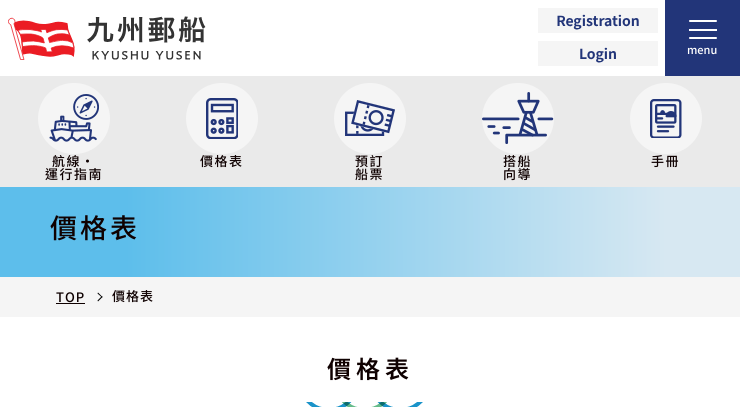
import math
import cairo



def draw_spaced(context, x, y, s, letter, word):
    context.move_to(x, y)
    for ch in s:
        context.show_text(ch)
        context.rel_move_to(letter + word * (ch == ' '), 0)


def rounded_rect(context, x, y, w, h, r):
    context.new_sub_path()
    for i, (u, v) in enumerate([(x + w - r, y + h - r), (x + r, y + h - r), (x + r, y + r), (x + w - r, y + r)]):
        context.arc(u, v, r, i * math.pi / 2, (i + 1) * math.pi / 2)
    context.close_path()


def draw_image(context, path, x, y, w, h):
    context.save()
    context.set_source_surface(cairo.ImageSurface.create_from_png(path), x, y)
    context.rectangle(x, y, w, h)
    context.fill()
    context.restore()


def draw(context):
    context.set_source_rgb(1, 1, 1)
    context.paint()
    draw_image(context, "images/1.png", 8, 16, 198, 44)
    draw_image(context, "images/2.png", 538, 8, 120, 58)
    context.set_source_rgb(34 / 255, 53 / 255, 121 / 255)
    context.rectangle(665, 0, 75, 76)
    context.fill()
    context.set_source_rgb(1, 1, 1)
    rounded_rect(context, 689, 20, 28, 2, 1)
    context.fill()
    context.rectangle(689, 29, 28, 2)
    context.fill()
    rounded_rect(context, 689, 37, 28, 2, 1)
    context.fill()
    context.set_source_rgb(234 / 255, 234 / 255, 234 / 255)
    context.rectangle(0, 76, 740, 111)
    context.fill()
    context.set_source_rgb(245 / 255, 245 / 255, 245 / 255)
    rounded_rect(context, 38, 83, 72, 71, 35.5)
    context.fill()
    draw_image(context, "images/3.png", 49, 94, 50, 48)
    rounded_rect(context, 186, 83, 72, 71, 35.5)
    context.fill()
    draw_image(context, "images/4.png", 206, 98, 32, 41)
    rounded_rect(context, 334, 83, 72, 71, 35.5)
    context.fill()
    draw_image(context, "images/5.png", 345, 100, 50, 36)
    rounded_rect(context, 482, 83, 72, 71, 35.5)
    context.fill()
    draw_image(context, "images/6.png", 482, 92, 72, 52)
    rounded_rect(context, 630, 83, 72, 71, 35.5)
    context.fill()
    draw_image(context, "images/7.png", 650, 99, 32, 39)
    gradient = cairo.LinearGradient(0, 139, 740, 138)
    gradient.add_color_stop_rgba(0.17, 93 / 255, 190 / 255, 235 / 255, 1)
    gradient.add_color_stop_rgba(0.9, 215 / 255, 232 / 255, 242 / 255, 1)
    context.set_source(gradient)
    context.rectangle(0, 187, 740, 90)
    context.fill()
    context.set_source_rgb(245 / 255, 245 / 255, 245 / 255)
    context.rectangle(0, 277, 740, 40)
    context.fill()
    context.set_source_rgb(15 / 255, 1 / 255, 1 / 255)
    context.rectangle(56, 303, 29, 1)
    context.fill()
    context.set_source_rgb(0, 0, 0)
    context.new_path()
    context.move_to(98, 292.5)
    context.line_to(102.5, 297)
    context.line_to(102, 297.5)
    context.line_to(97.5, 293.5)
    context.close_path()
    context.fill()
    context.new_path()
    context.move_to(102, 296)
    context.line_to(102.5, 297)
    context.line_to(98, 301.5)
    context.line_to(97.5, 300.5)
    context.close_path()
    context.fill()
    draw_image(context, "images/8.png", 306, 402, 117, 5)
    context.select_font_face("Noto Sans TC Medium")
    context.set_font_size(11)
    context.set_source_rgb(1, 1, 1)
    context.move_to(687, 54)
    context.show_text("menu")
    context.set_font_size(13)
    context.set_source_rgb(15 / 255, 1 / 255, 1 / 255)
    draw_spaced(context, 52, 166, "航線・", 1.5, 0)
    draw_spaced(context, 45, 179, "運行指南", 1.5, 0)
    draw_spaced(context, 200, 166, "價格表", 1.5, 0)
    draw_spaced(context, 355, 166, "預訂", 1.5, 0)
    draw_spaced(context, 355, 179, "船票", 1.5, 0)
    draw_spaced(context, 503, 166, "搭船", 1.5, 0)
    draw_spaced(context, 503, 179, "向導", 1.5, 0)
    draw_spaced(context, 651, 166, "手冊", 1.5, 0)
    context.set_font_size(27)
    draw_spaced(context, 50, 238, "價格表", 3, 0)
    context.set_font_size(13)
    draw_spaced(context, 56, 302, "TOP", 1, 0)
    draw_spaced(context, 112, 301, "價格表", 1, 0)
    context.select_font_face("Noto Sans TC SemiBold")
    context.set_font_size(24)
    draw_spaced(context, 327, 378, "價格表", 5, 0)


surface = cairo.ImageSurface(cairo.Format.RGB24, 740, 407)
context = cairo.Context(surface)
options = cairo.FontOptions()
options.set_hint_metrics(cairo.HintMetrics.OFF)
options.set_hint_style(cairo.HintStyle.NONE)
context.set_font_options(options)
context.set_miter_limit(4)
draw(context)
surface.write_to_png("out.png")
